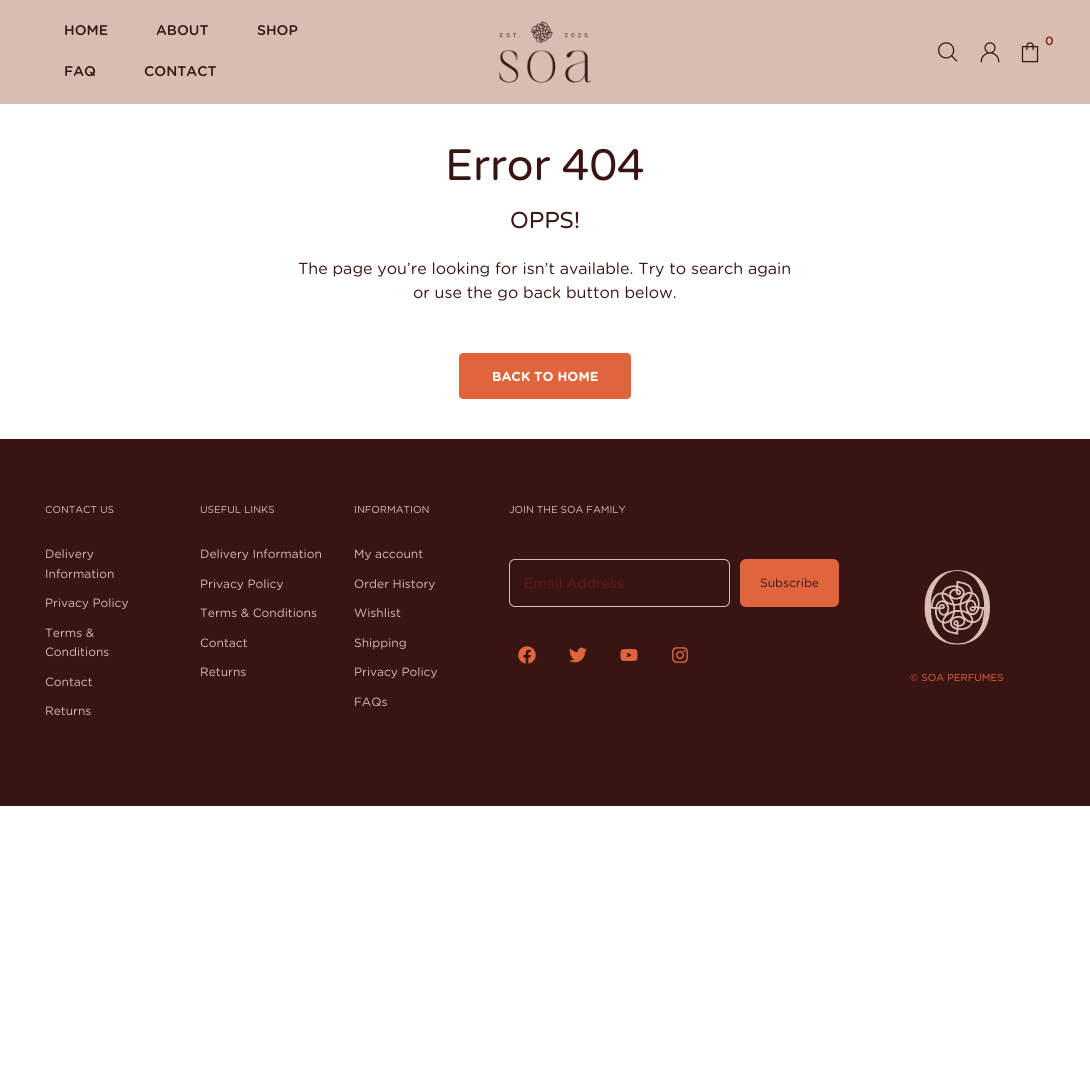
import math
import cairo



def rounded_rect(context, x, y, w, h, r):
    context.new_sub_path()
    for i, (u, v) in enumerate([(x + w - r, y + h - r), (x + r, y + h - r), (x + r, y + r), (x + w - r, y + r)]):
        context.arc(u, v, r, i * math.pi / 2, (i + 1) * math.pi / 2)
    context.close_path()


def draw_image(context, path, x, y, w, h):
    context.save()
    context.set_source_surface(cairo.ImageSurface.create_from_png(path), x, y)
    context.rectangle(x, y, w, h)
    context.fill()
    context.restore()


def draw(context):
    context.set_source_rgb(1, 1, 1)
    context.paint()
    context.set_source_rgb(215 / 255, 190 / 255, 176 / 255)
    context.rectangle(0, 0, 1090, 104)
    context.fill()
    draw_image(context, "images/1.png", 499, 21, 92, 62)
    draw_image(context, "images/2.png", 1021, 42, 18, 21)
    draw_image(context, "images/3.png", 938, 42, 20, 20)
    draw_image(context, "images/4.png", 980, 42, 20, 21)
    context.set_source_rgb(225 / 255, 101 / 255, 60 / 255)
    rounded_rect(context, 459, 353, 172, 46, 4)
    context.fill()
    context.set_source_rgb(56 / 255, 20 / 255, 18 / 255)
    context.rectangle(0, 439, 1090, 367)
    context.fill()
    rounded_rect(context, 509.5, 559.5, 220, 47, 5.5)
    context.set_source_rgb(215 / 255, 190 / 255, 176 / 255)
    context.set_line_width(1)
    context.stroke()
    context.set_source_rgb(225 / 255, 101 / 255, 60 / 255)
    rounded_rect(context, 740, 559, 99, 48, 6)
    context.fill()
    draw_image(context, "images/5.png", 518, 646, 18, 18)
    draw_image(context, "images/6.png", 569, 647, 18, 16)
    draw_image(context, "images/7.png", 620, 649, 18, 12)
    draw_image(context, "images/8.png", 672, 647, 16, 16)
    draw_image(context, "images/9.png", 924, 570, 66, 75)
    context.select_font_face("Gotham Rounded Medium")
    context.set_font_size(14)
    context.set_source_rgb(56 / 255, 20 / 255, 18 / 255)
    context.move_to(64, 35)
    context.show_text("HOME")
    context.move_to(156, 35)
    context.show_text("ABOUT")
    context.move_to(257, 35)
    context.show_text("SHOP")
    context.move_to(64, 76)
    context.show_text("FAQ")
    context.move_to(144, 76)
    context.show_text("CONTACT")
    context.set_font_size(12)
    context.set_source_rgb(127 / 255, 34 / 255, 24 / 255)
    context.move_to(1045, 45)
    context.show_text("0")
    context.select_font_face("Varela Round")
    context.set_font_size(44)
    context.set_source_rgb(56 / 255, 20 / 255, 18 / 255)
    context.move_to(445, 180)
    context.show_text("Error 404")
    context.set_font_size(23)
    context.move_to(510, 228)
    context.show_text("OPPS!")
    context.select_font_face("Gotham Rounded")
    context.set_font_size(16)
    context.move_to(298, 274)
    context.show_text("The page you’re looking for isn’t available. Try to search again")
    context.move_to(413, 298)
    context.show_text("or use the go back button below.")
    context.select_font_face("Gotham Rounded", cairo.FontSlant.NORMAL, cairo.FontWeight.BOLD)
    context.set_font_size(13)
    context.set_source_rgb(1, 1, 1)
    context.move_to(492, 381)
    context.show_text("BACK TO HOME")
    context.select_font_face("Gotham Rounded")
    context.set_font_size(10)
    context.set_source_rgb(215 / 255, 190 / 255, 176 / 255)
    context.move_to(45, 513)
    context.show_text("CONTACT US")
    context.set_font_size(12)
    context.move_to(45, 558)
    context.show_text("Delivery")
    context.move_to(45, 578)
    context.show_text("Information")
    context.move_to(45, 607)
    context.show_text("Privacy Policy")
    context.move_to(45, 637)
    context.show_text("Terms &")
    context.move_to(45, 656)
    context.show_text("Conditions")
    context.move_to(45, 686)
    context.show_text("Contact")
    context.move_to(45, 715)
    context.show_text("Returns")
    context.set_font_size(10)
    context.move_to(200, 513)
    context.show_text("USEFUL LINKS")
    context.set_font_size(12)
    context.move_to(200, 558)
    context.show_text("Delivery Information")
    context.move_to(200, 588)
    context.show_text("Privacy Policy")
    context.move_to(200, 617)
    context.show_text("Terms & Conditions")
    context.move_to(200, 647)
    context.show_text("Contact")
    context.move_to(200, 676)
    context.show_text("Returns")
    context.set_font_size(10)
    context.move_to(354, 513)
    context.show_text("INFORMATION")
    context.set_font_size(12)
    context.move_to(354, 558)
    context.show_text("My account")
    context.move_to(354, 588)
    context.show_text("Order History")
    context.move_to(354, 617)
    context.show_text("Wishlist")
    context.move_to(354, 647)
    context.show_text("Shipping")
    context.move_to(354, 676)
    context.show_text("Privacy Policy")
    context.move_to(354, 706)
    context.show_text("FAQs")
    context.set_font_size(10)
    context.move_to(509, 513)
    context.show_text("JOIN THE SOA FAMILY")
    context.set_font_size(14)
    context.set_source_rgb(99 / 255, 28 / 255, 19 / 255)
    context.move_to(524, 588)
    context.show_text("Email Address")
    context.set_font_size(12)
    context.set_source_rgb(56 / 255, 20 / 255, 18 / 255)
    context.move_to(760, 587)
    context.show_text("Subscribe")
    context.set_font_size(10)
    context.set_source_rgb(225 / 255, 101 / 255, 60 / 255)
    context.move_to(910, 681)
    context.show_text("© SOA PERFUMES")


surface = cairo.ImageSurface(cairo.Format.RGB24, 1090, 1083)
context = cairo.Context(surface)
options = cairo.FontOptions()
options.set_hint_metrics(cairo.HintMetrics.OFF)
options.set_hint_style(cairo.HintStyle.NONE)
context.set_font_options(options)
context.set_miter_limit(4)
draw(context)
surface.write_to_png("out.png")
